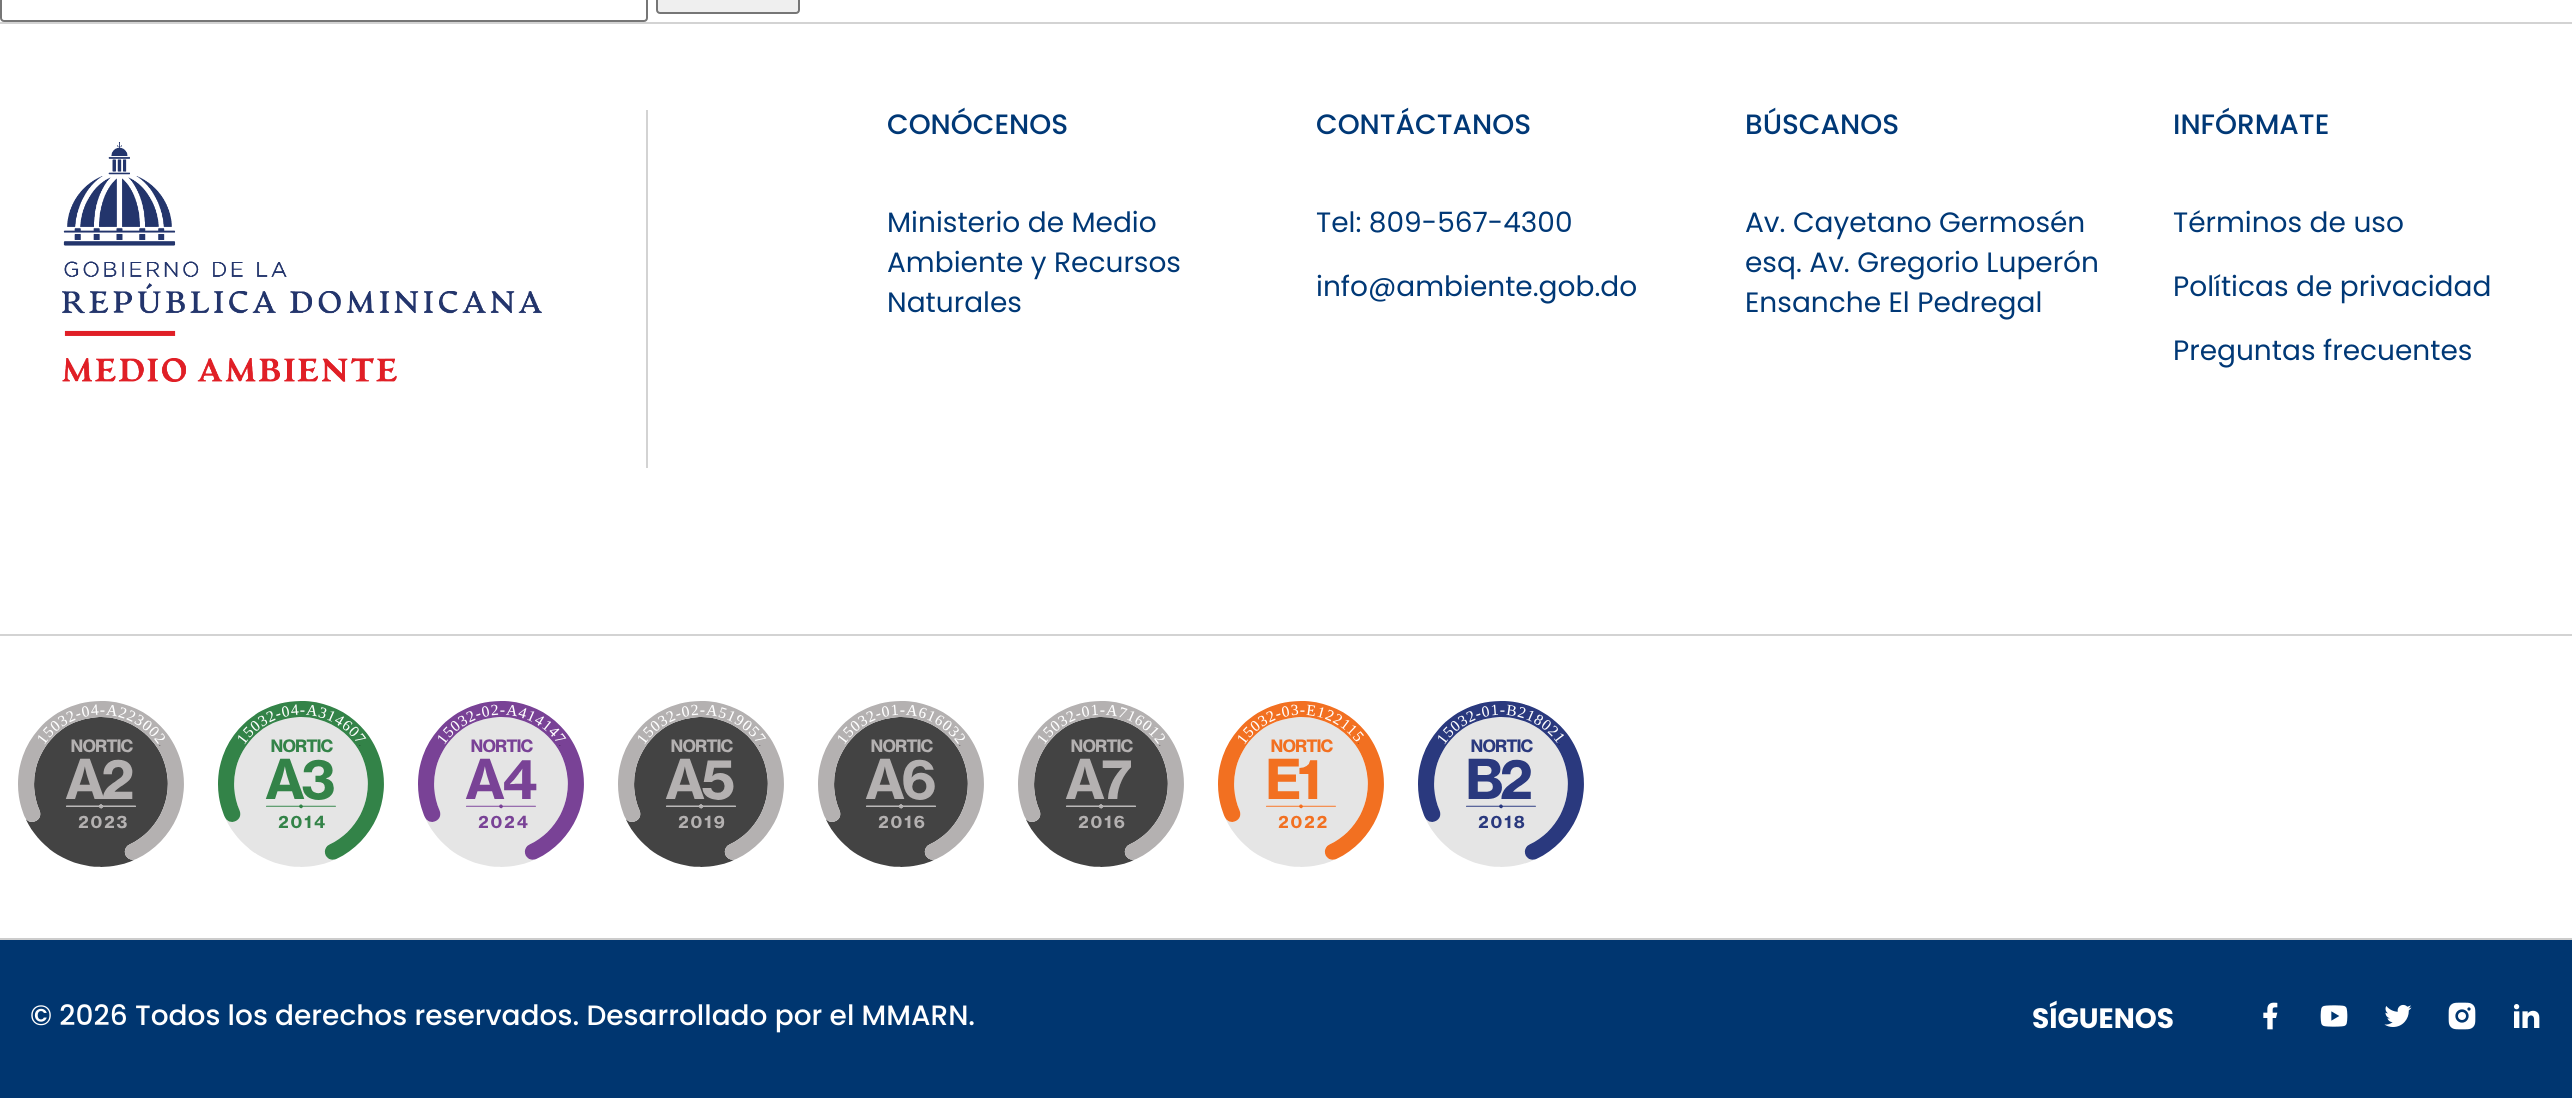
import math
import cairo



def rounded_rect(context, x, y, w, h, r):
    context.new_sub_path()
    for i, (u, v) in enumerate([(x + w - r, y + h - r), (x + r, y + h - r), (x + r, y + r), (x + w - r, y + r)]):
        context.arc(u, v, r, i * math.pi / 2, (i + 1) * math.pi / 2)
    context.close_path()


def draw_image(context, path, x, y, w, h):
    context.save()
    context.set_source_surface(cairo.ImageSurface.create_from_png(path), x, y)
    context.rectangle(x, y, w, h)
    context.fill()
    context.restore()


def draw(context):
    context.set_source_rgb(1, 1, 1)
    context.paint()
    rounded_rect(context, 1, -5, 646, 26, 3)
    context.set_source_rgb(118 / 255, 118 / 255, 118 / 255)
    context.stroke()
    context.set_source_rgb(239 / 255, 239 / 255, 239 / 255)
    rounded_rect(context, 657, -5, 142, 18, 3)
    context.fill_preserve()
    context.set_source_rgb(118 / 255, 118 / 255, 118 / 255)
    context.stroke()
    context.set_source_rgb(211 / 255, 211 / 255, 211 / 255)
    context.rectangle(0, 22, 2572, 2)
    context.fill()
    context.rectangle(0, 634, 2572, 2)
    context.fill()
    draw_image(context, "images/1.png", 62, 142, 480, 240)
    context.rectangle(646, 110, 2, 358)
    context.fill()
    context.set_source_rgb(204 / 255, 204 / 255, 204 / 255)
    context.rectangle(0, 938, 2572, 2)
    context.fill()
    draw_image(context, "images/2.png", 18, 701, 166, 166)
    draw_image(context, "images/3.png", 218, 701, 166, 166)
    draw_image(context, "images/4.png", 418, 701, 166, 166)
    draw_image(context, "images/5.png", 618, 701, 166, 166)
    draw_image(context, "images/6.png", 818, 701, 166, 166)
    draw_image(context, "images/7.png", 1018, 701, 166, 166)
    draw_image(context, "images/8.png", 1218, 701, 166, 166)
    draw_image(context, "images/9.png", 1418, 701, 166, 166)
    context.set_source_rgb(0, 54 / 255, 112 / 255)
    context.rectangle(0, 940, 2572, 158)
    context.fill()
    draw_image(context, "images/10.png", 2263, 1002, 15, 28)
    draw_image(context, "images/11.png", 2320, 1005, 28, 22)
    draw_image(context, "images/12.png", 2384, 1004, 28, 23)
    draw_image(context, "images/13.png", 2448, 1002, 28, 28)
    draw_image(context, "images/14.png", 2513, 1004, 27, 24)
    context.select_font_face("Poppins Medium")
    context.set_font_size(28)
    context.set_source_rgb(0, 56 / 255, 118 / 255)
    context.move_to(887, 134)
    context.show_text("CONÓCENOS")
    context.select_font_face("Poppins")
    context.move_to(887, 232)
    context.show_text("Ministerio de Medio")
    context.move_to(887, 272)
    context.show_text("Ambiente y Recursos")
    context.move_to(887, 312)
    context.show_text("Naturales")
    context.select_font_face("Poppins Medium")
    context.move_to(1316, 134)
    context.show_text("CONTÁCTANOS")
    context.select_font_face("Poppins")
    context.move_to(1316, 232)
    context.show_text("Tel: 809-567-4300")
    context.move_to(1316, 296)
    context.show_text("info@ambiente.gob.do")
    context.select_font_face("Poppins Medium")
    context.move_to(1745, 134)
    context.show_text("BÚSCANOS")
    context.select_font_face("Poppins")
    context.move_to(1745, 232)
    context.show_text("Av. Cayetano Germosén")
    context.move_to(1745, 272)
    context.show_text("esq. Av. Gregorio Luperón")
    context.move_to(1745, 312)
    context.show_text("Ensanche El Pedregal")
    context.select_font_face("Poppins Medium")
    context.move_to(2173, 134)
    context.show_text("INFÓRMATE")
    context.select_font_face("Poppins")
    context.move_to(2173, 232)
    context.show_text("Términos de uso")
    context.move_to(2173, 296)
    context.show_text("Políticas de privacidad")
    context.move_to(2173, 360)
    context.show_text("Preguntas frecuentes")
    context.select_font_face("Poppins Medium")
    context.set_source_rgb(1, 1, 1)
    context.move_to(30, 1025)
    context.show_text("© 2026 Todos los derechos reservados. Desarrollado por el MMARN.")
    context.select_font_face("Poppins", cairo.FontSlant.NORMAL, cairo.FontWeight.BOLD)
    context.move_to(2032, 1028)
    context.show_text("SÍGUENOS")


surface = cairo.ImageSurface(cairo.Format.RGB24, 2572, 1098)
context = cairo.Context(surface)
options = cairo.FontOptions()
options.set_hint_metrics(cairo.HintMetrics.OFF)
options.set_hint_style(cairo.HintStyle.NONE)
context.set_font_options(options)
context.set_miter_limit(4)
draw(context)
surface.write_to_png("out.png")
